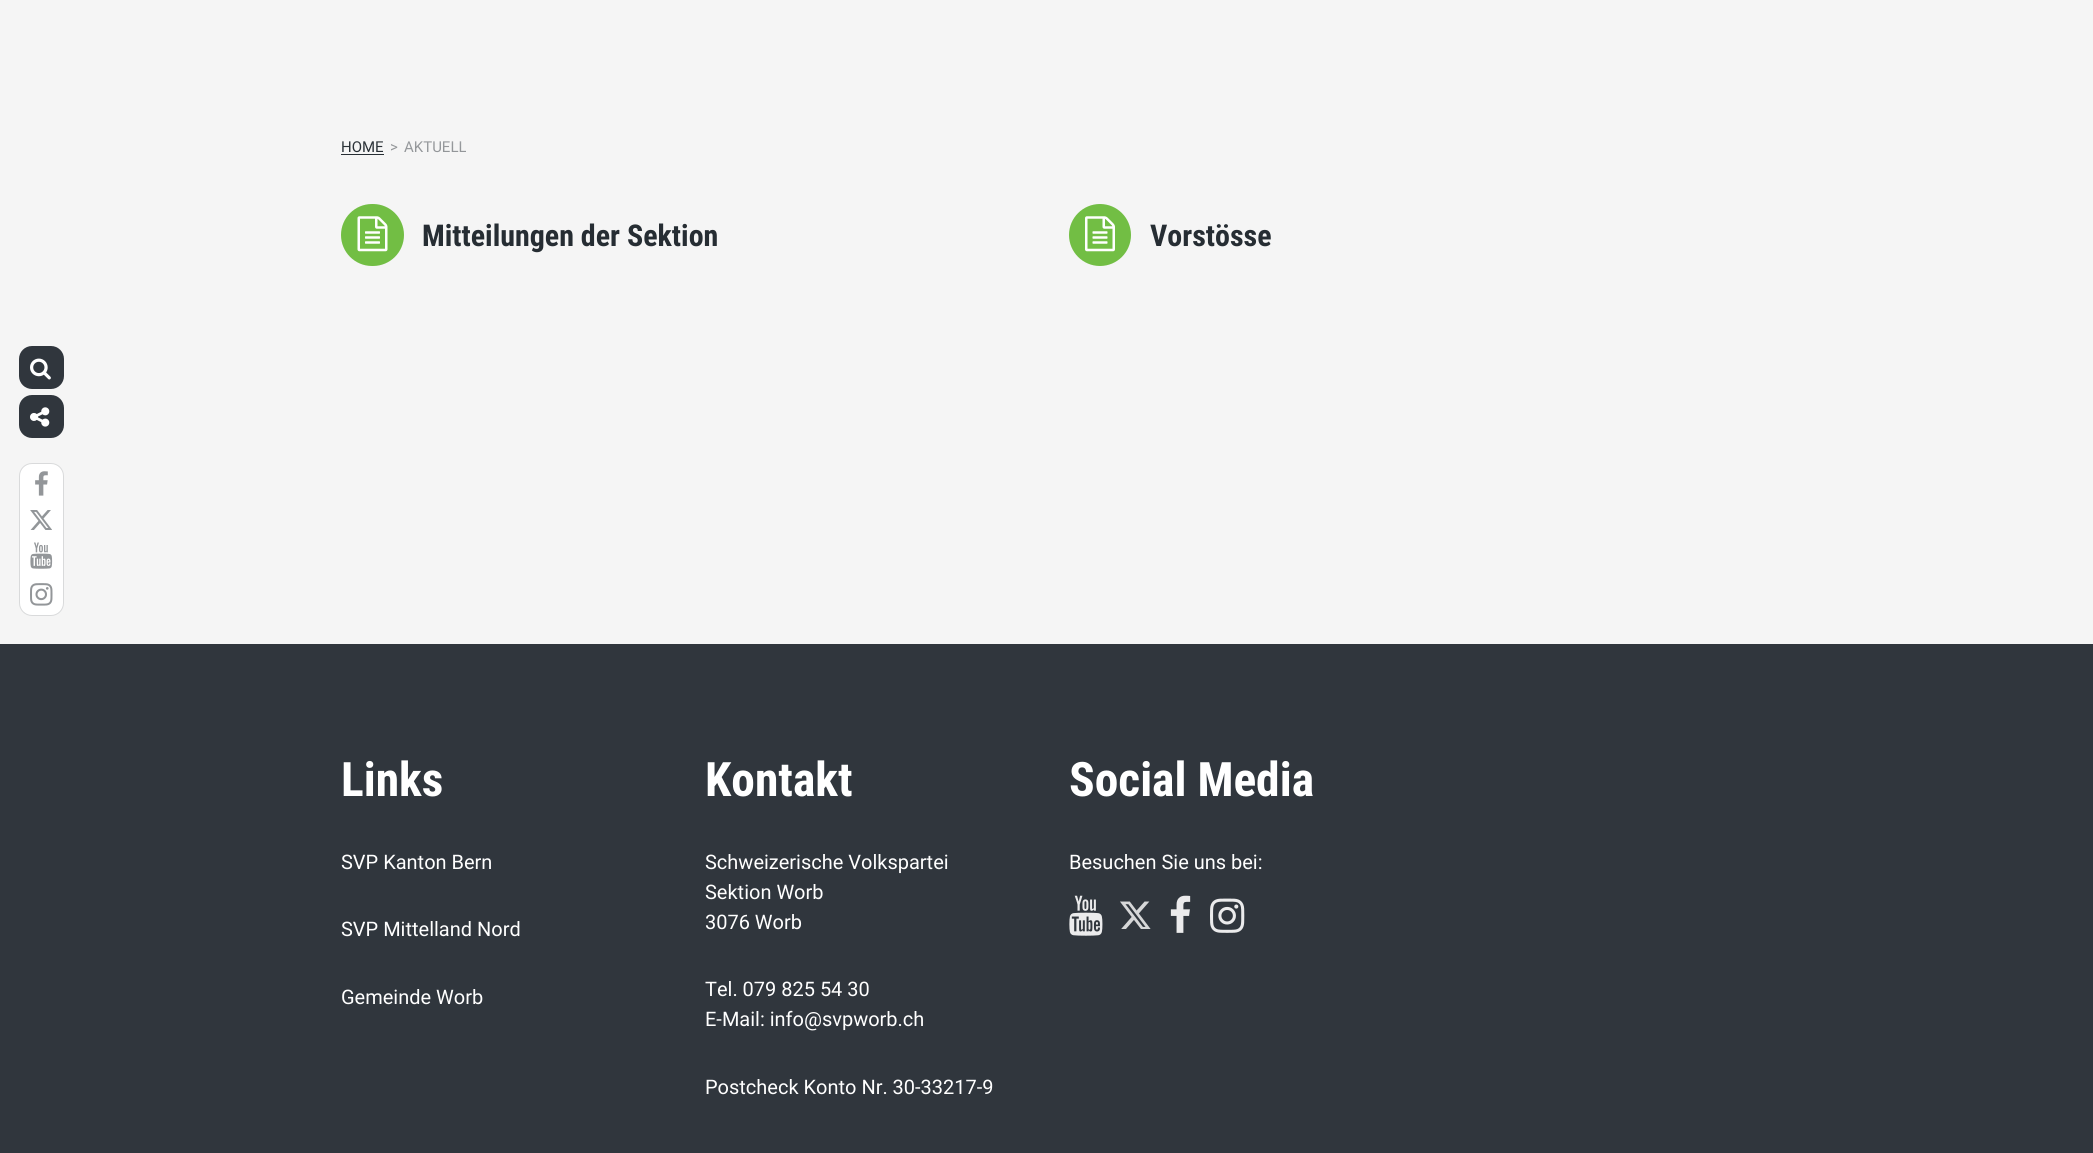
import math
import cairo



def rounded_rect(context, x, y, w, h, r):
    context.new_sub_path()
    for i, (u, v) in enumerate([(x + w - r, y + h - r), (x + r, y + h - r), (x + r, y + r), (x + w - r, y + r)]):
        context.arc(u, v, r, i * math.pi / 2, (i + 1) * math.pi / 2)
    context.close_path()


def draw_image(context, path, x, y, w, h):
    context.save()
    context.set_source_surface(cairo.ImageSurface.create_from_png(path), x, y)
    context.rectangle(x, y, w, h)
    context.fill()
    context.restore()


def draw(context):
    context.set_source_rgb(245 / 255, 245 / 255, 245 / 255)
    context.paint()
    context.set_source_rgb(38 / 255, 45 / 255, 51 / 255)
    context.rectangle(341, 154, 43, 1)
    context.fill()
    context.set_source_rgb(114 / 255, 190 / 255, 68 / 255)
    rounded_rect(context, 341, 204, 63, 62, 31)
    context.fill()
    draw_image(context, "images/1.png", 357, 216, 31, 36)
    context.arc(1100, 235, 31, 0, 2 * math.pi)
    context.fill()
    draw_image(context, "images/2.png", 1085, 216, 30, 36)
    context.set_source_rgb(48 / 255, 54 / 255, 61 / 255)
    context.rectangle(0, 644, 2093, 509)
    context.fill()
    draw_image(context, "images/3.png", 1069, 895, 34, 41)
    draw_image(context, "images/4.png", 1120, 901, 31, 28)
    draw_image(context, "images/5.png", 1170, 895, 21, 38)
    draw_image(context, "images/6.png", 1210, 898, 35, 35)
    rounded_rect(context, 19, 346, 45, 43, 13)
    context.fill()
    draw_image(context, "images/7.png", 30, 358, 21, 22)
    rounded_rect(context, 19, 395, 45, 43, 13)
    context.fill()
    draw_image(context, "images/8.png", 30, 407, 20, 20)
    context.set_source_rgb(1, 1, 1)
    rounded_rect(context, 19.5, 463.5, 44, 152, 12.5)
    context.fill_preserve()
    context.set_source_rgb(217 / 255, 218 / 255, 219 / 255)
    context.set_line_width(1)
    context.stroke()
    draw_image(context, "images/9.png", 35, 471, 13, 25)
    draw_image(context, "images/10.png", 30, 510, 22, 20)
    draw_image(context, "images/11.png", 30, 542, 23, 27)
    draw_image(context, "images/12.png", 30, 583, 23, 23)
    context.select_font_face("Roboto")
    context.set_font_size(15)
    context.set_source_rgb(38 / 255, 45 / 255, 51 / 255)
    context.move_to(341, 152)
    context.show_text("HOME")
    context.set_source_rgb(147 / 255, 150 / 255, 153 / 255)
    context.move_to(390, 152)
    context.show_text(">")
    context.move_to(404, 152)
    context.show_text("AKTUELL")
    context.select_font_face("Roboto Condensed", cairo.FontSlant.NORMAL, cairo.FontWeight.BOLD)
    context.set_font_size(30)
    context.set_source_rgb(38 / 255, 45 / 255, 51 / 255)
    context.move_to(422, 246)
    context.show_text("Mitteilungen der Sektion")
    context.move_to(1150, 246)
    context.show_text("Vorstösse")
    context.set_font_size(47.5)
    context.set_source_rgb(1, 1, 1)
    context.move_to(341, 796)
    context.show_text("Links")
    context.select_font_face("Roboto")
    context.set_font_size(20)
    context.move_to(341, 869)
    context.show_text("SVP Kanton Bern")
    context.move_to(341, 936)
    context.show_text("SVP Mittelland Nord")
    context.move_to(341, 1004)
    context.show_text("Gemeinde Worb")
    context.select_font_face("Roboto Condensed", cairo.FontSlant.NORMAL, cairo.FontWeight.BOLD)
    context.set_font_size(47.5)
    context.move_to(705, 796)
    context.show_text("Kontakt")
    context.select_font_face("Roboto")
    context.set_font_size(20)
    context.move_to(705, 869)
    context.show_text("Schweizerische Volkspartei")
    context.move_to(705, 899)
    context.show_text("Sektion Worb")
    context.move_to(705, 929)
    context.show_text("3076 Worb")
    context.move_to(705, 996)
    context.show_text("Tel. 079 825 54 30")
    context.move_to(705, 1026)
    context.show_text("E-Mail: info@svpworb.ch")
    context.move_to(705, 1094)
    context.show_text("Postcheck Konto Nr. 30-33217-9")
    context.select_font_face("Roboto Condensed", cairo.FontSlant.NORMAL, cairo.FontWeight.BOLD)
    context.set_font_size(47.5)
    context.move_to(1069, 796)
    context.show_text("Social Media")
    context.select_font_face("Roboto")
    context.set_font_size(20)
    context.move_to(1069, 869)
    context.show_text("Besuchen Sie uns bei:")
    gradient = cairo.LinearGradient(1047, 0, 1047, 150)
    gradient.add_color_stop_rgba(0.1, 245 / 255, 245 / 255, 245 / 255, 0.95)
    gradient.add_color_stop_rgba(1, 245 / 255, 245 / 255, 245 / 255, 0)
    context.set_source(gradient)
    context.rectangle(342, 141, 119, 6)
    context.fill()


surface = cairo.ImageSurface(cairo.Format.RGB24, 2093, 1153)
context = cairo.Context(surface)
options = cairo.FontOptions()
options.set_hint_metrics(cairo.HintMetrics.OFF)
options.set_hint_style(cairo.HintStyle.NONE)
context.set_font_options(options)
context.set_miter_limit(4)
draw(context)
surface.write_to_png("out.png")
